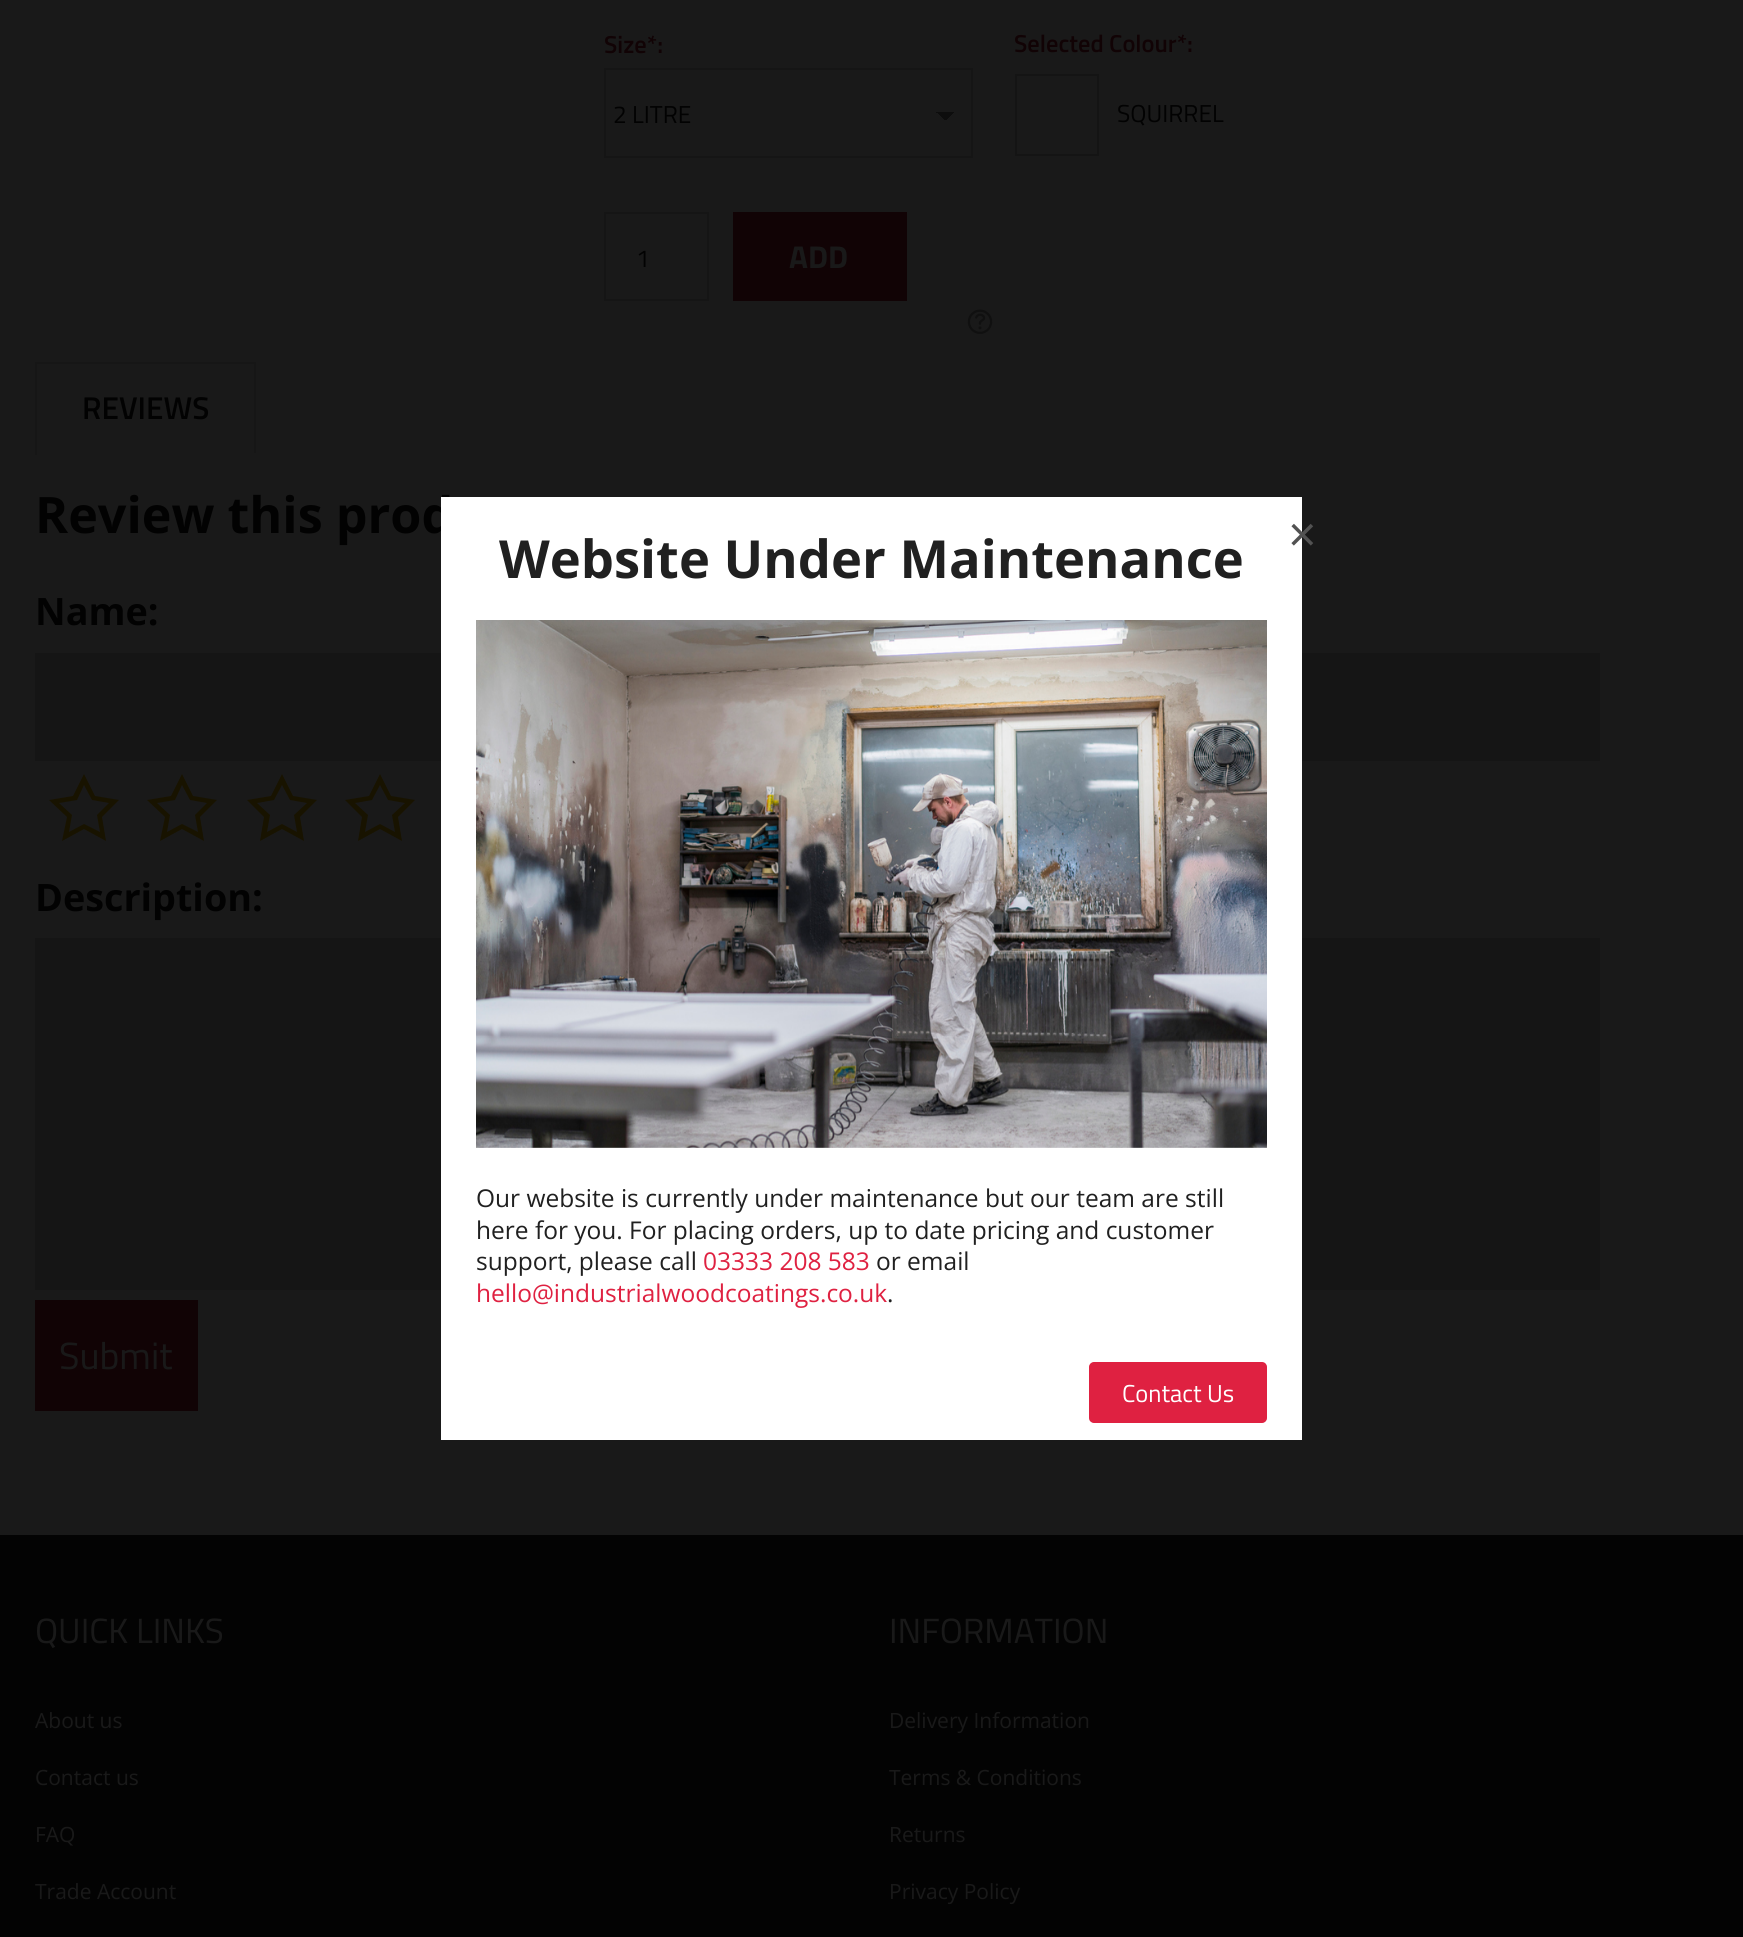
import math
import cairo



def rounded_rect(context, x, y, w, h, r):
    context.new_sub_path()
    for i, (u, v) in enumerate([(x + w - r, y + h - r), (x + r, y + h - r), (x + r, y + r), (x + w - r, y + r)]):
        context.arc(u, v, r, i * math.pi / 2, (i + 1) * math.pi / 2)
    context.close_path()


def draw_image(context, path, x, y, w, h):
    context.save()
    context.set_source_surface(cairo.ImageSurface.create_from_png(path), x, y)
    context.rectangle(x, y, w, h)
    context.fill()
    context.restore()


def draw(context):
    context.set_source_rgb(25 / 255, 25 / 255, 25 / 255)
    context.paint()
    gradient = cairo.LinearGradient(945, 112, 954, 121)
    gradient.add_color_stop_rgba(0.5, 13 / 255, 13 / 255, 13 / 255, 1)
    gradient.add_color_stop_rgba(0.5, 25 / 255, 25 / 255, 25 / 255, 1)
    context.set_source(gradient)
    context.rectangle(945, 112, 9, 8)
    context.fill()
    gradient = cairo.LinearGradient(936, 121, 945, 112)
    gradient.add_color_stop_rgba(0.5, 25 / 255, 25 / 255, 25 / 255, 1)
    gradient.add_color_stop_rgba(0.5, 13 / 255, 13 / 255, 13 / 255, 1)
    context.set_source(gradient)
    context.rectangle(936, 112, 9, 8)
    context.fill()
    context.rectangle(605, 69, 367, 88)
    context.set_source_rgb(21 / 255, 21 / 255, 21 / 255)
    context.stroke()
    context.rectangle(1016, 75, 82, 80)
    context.set_source_rgb(20 / 255, 20 / 255, 20 / 255)
    context.stroke()
    context.rectangle(605, 213, 103, 87)
    context.set_source_rgb(21 / 255, 21 / 255, 21 / 255)
    context.stroke()
    context.set_source_rgb(17 / 255, 3 / 255, 5 / 255)
    context.rectangle(734, 213, 172, 87)
    context.fill_preserve()
    context.stroke()
    draw_image(context, "images/1.png", 967, 309, 26, 25)
    context.set_source_rgb(22 / 255, 22 / 255, 22 / 255)
    context.rectangle(35, 362, 221, 2)
    context.fill()
    context.rectangle(254, 362, 2, 93)
    context.fill()
    context.set_source_rgb(25 / 255, 25 / 255, 25 / 255)
    context.rectangle(254, 453, 2, 2)
    context.fill()
    context.set_source_rgb(22 / 255, 22 / 255, 22 / 255)
    context.rectangle(35, 362, 2, 93)
    context.fill()
    context.set_source_rgb(21 / 255, 21 / 255, 21 / 255)
    context.rectangle(36, 654, 1563, 106)
    context.fill_preserve()
    context.stroke()
    context.set_source_rgb(24 / 255, 19 / 255, 0)
    context.new_path()
    context.move_to(119, 800)
    context.line_to(95, 796)
    context.line_to(84, 774)
    context.line_to(73, 796)
    context.line_to(49, 800)
    context.line_to(67, 817)
    context.line_to(62, 841)
    context.line_to(84, 829)
    context.line_to(106, 841)
    context.line_to(102, 817)
    context.close_path()
    context.move_to(84, 824)
    context.line_to(69, 832)
    context.line_to(72, 815)
    context.line_to(59, 803)
    context.line_to(77, 800)
    context.line_to(84, 785)
    context.line_to(92, 800)
    context.line_to(109, 803)
    context.line_to(97, 815)
    context.line_to(100, 832)
    context.close_path()
    context.fill()
    context.new_path()
    context.move_to(217, 800)
    context.line_to(193, 796)
    context.line_to(182, 774)
    context.line_to(171, 796)
    context.line_to(147, 800)
    context.line_to(165, 817)
    context.line_to(160, 841)
    context.line_to(182, 829)
    context.line_to(204, 841)
    context.line_to(200, 817)
    context.close_path()
    context.move_to(182, 824)
    context.line_to(167, 832)
    context.line_to(170, 815)
    context.line_to(157, 803)
    context.line_to(175, 800)
    context.line_to(182, 785)
    context.line_to(190, 800)
    context.line_to(207, 803)
    context.line_to(195, 815)
    context.line_to(198, 832)
    context.close_path()
    context.fill()
    context.new_path()
    context.move_to(317, 800)
    context.line_to(293, 796)
    context.line_to(282, 774)
    context.line_to(271, 796)
    context.line_to(247, 800)
    context.line_to(264, 817)
    context.line_to(260, 841)
    context.line_to(282, 829)
    context.line_to(304, 841)
    context.line_to(300, 817)
    context.close_path()
    context.move_to(282, 824)
    context.line_to(267, 832)
    context.line_to(270, 815)
    context.line_to(257, 803)
    context.line_to(274, 800)
    context.line_to(282, 785)
    context.line_to(290, 800)
    context.line_to(307, 803)
    context.line_to(294, 815)
    context.line_to(297, 832)
    context.close_path()
    context.fill()
    context.new_path()
    context.move_to(415, 800)
    context.line_to(391, 796)
    context.line_to(380, 774)
    context.line_to(369, 796)
    context.line_to(345, 800)
    context.line_to(362, 817)
    context.line_to(358, 841)
    context.line_to(380, 829)
    context.line_to(402, 841)
    context.line_to(398, 817)
    context.close_path()
    context.move_to(380, 824)
    context.line_to(365, 832)
    context.line_to(368, 815)
    context.line_to(355, 803)
    context.line_to(372, 800)
    context.line_to(380, 785)
    context.line_to(388, 800)
    context.line_to(405, 803)
    context.line_to(392, 815)
    context.line_to(395, 832)
    context.close_path()
    context.fill()
    context.set_source_rgb(21 / 255, 21 / 255, 21 / 255)
    context.rectangle(36, 939, 1563, 350)
    context.fill_preserve()
    context.stroke()
    context.set_source_rgb(17 / 255, 3 / 255, 5 / 255)
    context.rectangle(36, 1301, 161, 109)
    context.fill_preserve()
    context.stroke()
    context.set_source_rgb(3 / 255, 3 / 255, 3 / 255)
    context.rectangle(0, 1535, 1743, 402)
    context.fill()
    context.select_font_face("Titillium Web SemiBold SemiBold")
    context.set_font_size(24.5)
    context.set_source_rgb(17 / 255, 3 / 255, 5 / 255)
    context.move_to(604, 53)
    context.show_text("Size*:")
    context.select_font_face("Titillium Web")
    context.set_source_rgb(2 / 255, 2 / 255, 2 / 255)
    context.move_to(613, 123)
    context.show_text("2 LITRE")
    context.select_font_face("Titillium Web SemiBold SemiBold")
    context.set_source_rgb(17 / 255, 3 / 255, 5 / 255)
    context.move_to(1014, 52)
    context.show_text("Selected Colour*:")
    context.select_font_face("Titillium Web")
    context.set_source_rgb(2 / 255, 2 / 255, 2 / 255)
    context.move_to(1117, 122)
    context.show_text("SQUIRREL")
    context.move_to(636, 267)
    context.show_text("1")
    context.select_font_face("Titillium Web", cairo.FontSlant.NORMAL, cairo.FontWeight.BOLD)
    context.set_font_size(31.5)
    context.set_source_rgb(25 / 255, 25 / 255, 25 / 255)
    context.move_to(789, 268)
    context.show_text("ADD")
    context.select_font_face("Titillium Web SemiBold SemiBold")
    context.set_source_rgb(2 / 255, 2 / 255, 2 / 255)
    context.move_to(82, 419)
    context.show_text("REVIEWS")
    context.select_font_face("Open Sans", cairo.FontSlant.NORMAL, cairo.FontWeight.BOLD)
    context.set_font_size(50.25)
    context.move_to(35, 533)
    context.show_text("Review this prod")
    context.set_font_size(37.75)
    context.move_to(35, 625)
    context.show_text("Name:")
    context.move_to(35, 911)
    context.show_text("Description:")
    context.select_font_face("Titillium Web")
    context.set_source_rgb(25 / 255, 25 / 255, 25 / 255)
    context.move_to(59, 1369)
    context.show_text("Submit")
    context.set_source_rgb(1, 1, 1)
    context.rectangle(441, 497, 861, 943)
    context.fill()
    context.select_font_face("Liberation Sans")
    context.set_font_size(49)
    context.set_source_rgb(82 / 255, 82 / 255, 82 / 255)
    context.move_to(1288, 551)
    context.show_text("×")
    context.select_font_face("Open Sans", cairo.FontSlant.NORMAL, cairo.FontWeight.BOLD)
    context.set_font_size(52.5)
    context.set_source_rgb(32 / 255, 32 / 255, 32 / 255)
    context.move_to(499, 578)
    context.show_text("Website Under Maintenance")
    draw_image(context, "images/2.png", 476, 620, 791, 528)
    context.select_font_face("Open Sans")
    context.set_font_size(24.5)
    context.move_to(476, 1207)
    context.show_text("Our website is currently under maintenance but our team are still")
    context.move_to(476, 1239)
    context.show_text("here for you. For placing orders, up to date pricing and customer")
    context.move_to(476, 1270)
    context.show_text("support, please call")
    context.set_source_rgb(223 / 255, 33 / 255, 65 / 255)
    context.move_to(703, 1270)
    context.show_text("03333 208 583")
    context.set_source_rgb(32 / 255, 32 / 255, 32 / 255)
    context.move_to(876, 1270)
    context.show_text("or email")
    context.set_source_rgb(223 / 255, 33 / 255, 65 / 255)
    context.move_to(476, 1302)
    context.show_text("hello@industrialwoodcoatings.co.uk")
    context.set_source_rgb(32 / 255, 32 / 255, 32 / 255)
    context.move_to(887, 1302)
    context.show_text(".")
    context.set_source_rgb(223 / 255, 33 / 255, 65 / 255)
    rounded_rect(context, 1090, 1363, 176, 59, 4)
    context.fill_preserve()
    context.stroke()
    context.select_font_face("Titillium Web")
    context.set_source_rgb(1, 1, 1)
    context.move_to(1122, 1402)
    context.show_text("Contact Us")
    context.set_font_size(35)
    context.set_source_rgb(25 / 255, 25 / 255, 25 / 255)
    context.move_to(35, 1643)
    context.show_text("QUICK LINKS")
    context.select_font_face("Open Sans")
    context.set_font_size(21)
    context.move_to(35, 1728)
    context.show_text("About us")
    context.move_to(35, 1785)
    context.show_text("Contact us")
    context.move_to(35, 1842)
    context.show_text("FAQ")
    context.move_to(35, 1899)
    context.show_text("Trade Account")
    context.select_font_face("Titillium Web")
    context.set_font_size(35)
    context.move_to(889, 1643)
    context.show_text("INFORMATION")
    context.select_font_face("Open Sans")
    context.set_font_size(21)
    context.move_to(889, 1728)
    context.show_text("Delivery Information")
    context.move_to(889, 1785)
    context.show_text("Terms & Conditions")
    context.move_to(889, 1842)
    context.show_text("Returns")
    context.move_to(889, 1899)
    context.show_text("Privacy Policy")


surface = cairo.ImageSurface(cairo.Format.RGB24, 1743, 1937)
context = cairo.Context(surface)
options = cairo.FontOptions()
options.set_hint_metrics(cairo.HintMetrics.OFF)
options.set_hint_style(cairo.HintStyle.NONE)
context.set_font_options(options)
context.set_miter_limit(4)
draw(context)
surface.write_to_png("out.png")
